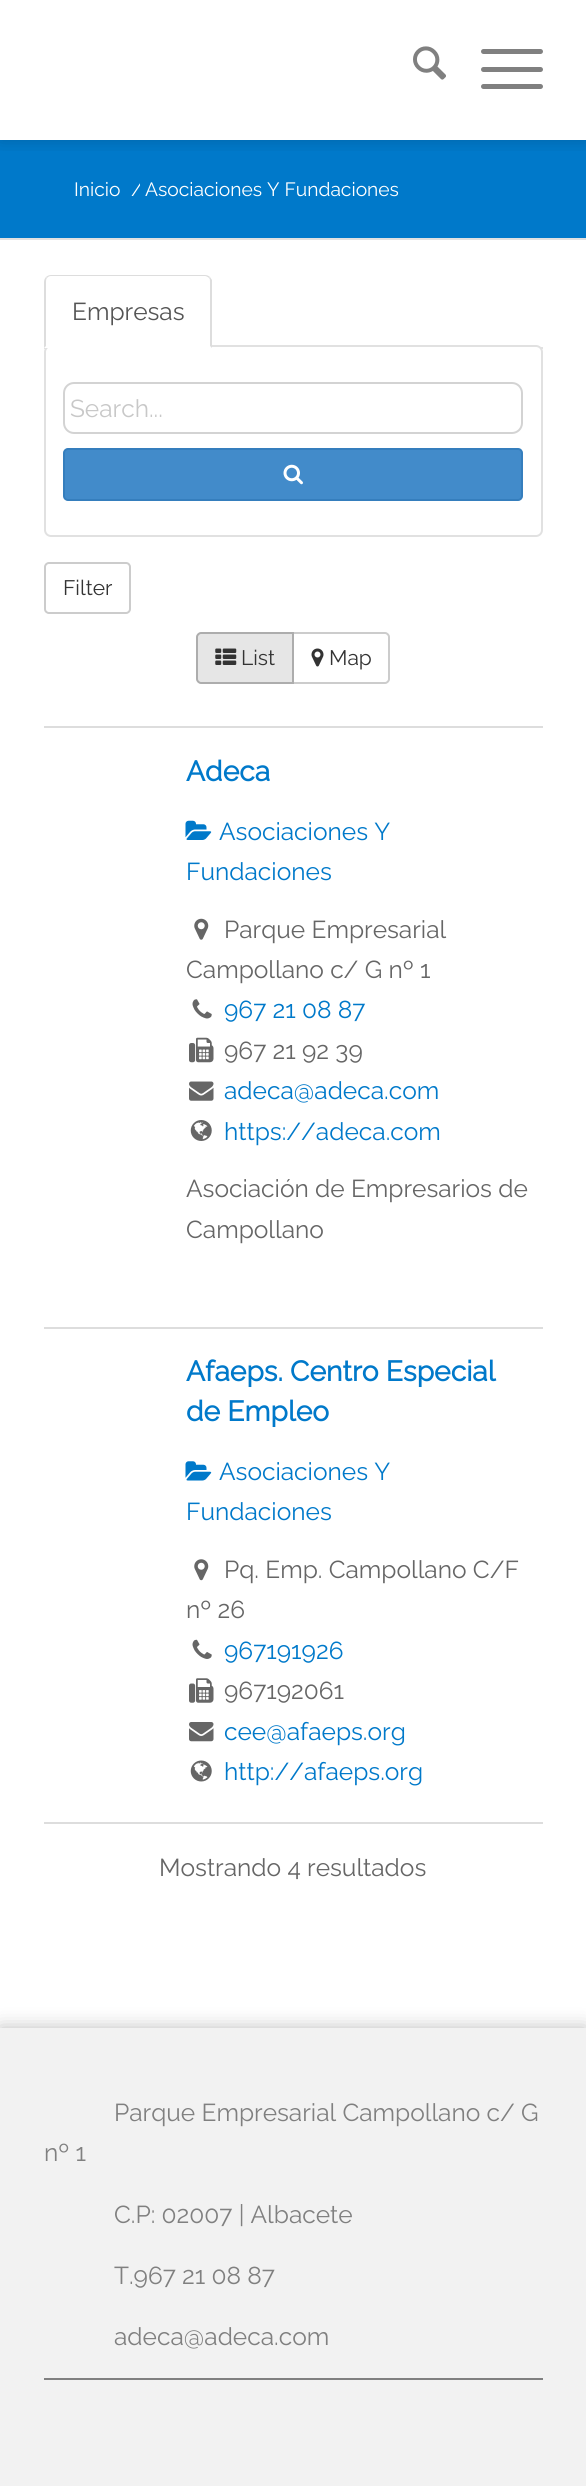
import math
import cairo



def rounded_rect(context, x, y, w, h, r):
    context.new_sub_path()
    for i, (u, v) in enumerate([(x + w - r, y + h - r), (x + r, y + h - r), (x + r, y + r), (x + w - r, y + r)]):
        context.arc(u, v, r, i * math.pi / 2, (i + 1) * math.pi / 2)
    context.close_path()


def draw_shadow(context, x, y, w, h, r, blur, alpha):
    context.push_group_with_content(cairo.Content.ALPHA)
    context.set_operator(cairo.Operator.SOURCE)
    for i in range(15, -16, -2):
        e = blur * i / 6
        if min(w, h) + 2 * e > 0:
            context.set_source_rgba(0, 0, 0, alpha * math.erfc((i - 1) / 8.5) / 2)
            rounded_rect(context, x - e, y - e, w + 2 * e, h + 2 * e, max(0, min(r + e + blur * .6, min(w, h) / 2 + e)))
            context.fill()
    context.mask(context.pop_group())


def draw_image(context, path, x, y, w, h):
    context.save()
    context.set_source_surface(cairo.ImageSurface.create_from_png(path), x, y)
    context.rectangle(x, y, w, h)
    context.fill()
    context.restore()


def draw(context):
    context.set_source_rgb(1, 1, 1)
    context.paint()
    context.set_source_rgb(0, 121 / 255, 202 / 255)
    context.rectangle(0, 140, 586, 98)
    context.fill()
    context.save()
    context.rectangle(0, 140, 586, 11)
    context.clip()
    context.set_source_rgb(0, 0, 0)
    draw_shadow(context, 0, 0, 586, 140, 0, 9, 0.18)
    context.restore()
    draw_image(context, "images/1.png", 413, 46, 33, 34)
    context.set_source_rgb(128 / 255, 128 / 255, 128 / 255)
    rounded_rect(context, 481, 67, 62, 5, 2.5)
    context.fill()
    rounded_rect(context, 481, 49, 62, 5, 2.5)
    context.fill()
    rounded_rect(context, 481, 84, 62, 5, 2.5)
    context.fill()
    context.set_source_rgb(225 / 255, 225 / 255, 225 / 255)
    context.rectangle(0, 238, 586, 2)
    context.fill()
    context.rectangle(44, 347, 499, 2)
    context.fill()
    context.set_source_rgb(1, 1, 1)
    rounded_rect(context, 45, 346, 497, 190, 6)
    context.fill_preserve()
    context.set_source_rgb(225 / 255, 225 / 255, 225 / 255)
    context.stroke()
    context.set_source_rgb(1, 1, 1)
    context.new_path()
    context.move_to(51, 275)
    context.line_to(205, 275)
    context.curve_to(209, 275, 212, 278, 212, 282)
    context.line_to(212, 348)
    context.line_to(44, 348)
    context.line_to(44, 282)
    context.curve_to(44, 278, 47, 275, 51, 275)
    context.close_path()
    context.fill()
    context.set_source_rgb(221 / 255, 221 / 255, 221 / 255)
    context.new_path()
    context.move_to(51, 275)
    context.curve_to(49, 275, 47, 276, 46, 277)
    context.line_to(47, 278)
    context.curve_to(48, 277, 49, 276, 51, 276)
    context.line_to(205, 276)
    context.curve_to(206, 276, 208, 277, 209, 278)
    context.line_to(210, 277)
    context.curve_to(209, 276, 207, 275, 205, 275)
    context.close_path()
    context.fill()
    context.new_path()
    context.move_to(210, 277)
    context.line_to(212, 280)
    context.line_to(212, 348)
    context.line_to(210, 346)
    context.line_to(210, 282)
    context.curve_to(210, 280, 210, 279, 209, 278)
    context.close_path()
    context.fill()
    context.new_path()
    context.move_to(46, 277)
    context.curve_to(45, 278, 44, 280, 44, 282)
    context.line_to(44, 348)
    context.line_to(46, 346)
    context.line_to(46, 282)
    context.curve_to(46, 281, 46, 279, 47, 278)
    context.close_path()
    context.fill()
    rounded_rect(context, 64, 383, 458, 50, 10)
    context.set_source_rgb(211 / 255, 211 / 255, 211 / 255)
    context.stroke()
    context.set_source_rgb(66 / 255, 139 / 255, 202 / 255)
    rounded_rect(context, 64, 449, 458, 51, 4)
    context.fill_preserve()
    context.set_source_rgb(53 / 255, 126 / 255, 189 / 255)
    context.stroke()
    draw_image(context, "images/2.png", 283, 464, 20, 21)
    context.set_source_rgb(221 / 255, 221 / 255, 221 / 255)
    context.rectangle(44, 726, 499, 2)
    context.fill()
    rounded_rect(context, 45, 563, 85, 50, 4)
    context.set_source_rgb(204 / 255, 204 / 255, 204 / 255)
    context.stroke()
    context.new_path()
    context.move_to(293, 633)
    context.line_to(385, 633)
    context.curve_to(387, 633, 389, 635, 389, 637)
    context.line_to(389, 679)
    context.curve_to(389, 681, 387, 683, 385, 683)
    context.line_to(293, 683)
    context.close_path()
    context.stroke()
    context.set_source_rgb(230 / 255, 230 / 255, 230 / 255)
    context.new_path()
    context.move_to(201, 633)
    context.line_to(293, 633)
    context.line_to(293, 683)
    context.line_to(201, 683)
    context.curve_to(199, 683, 197, 681, 197, 679)
    context.line_to(197, 637)
    context.curve_to(197, 635, 199, 633, 201, 633)
    context.close_path()
    context.fill_preserve()
    context.set_source_rgb(173 / 255, 173 / 255, 173 / 255)
    context.stroke()
    draw_image(context, "images/3.png", 215, 648, 22, 17)
    draw_image(context, "images/4.png", 311, 648, 13, 19)
    context.set_source_rgb(221 / 255, 221 / 255, 221 / 255)
    context.rectangle(44, 1327, 499, 2)
    context.fill()
    draw_image(context, "images/5.png", 185, 820, 27, 20)
    draw_image(context, "images/6.png", 194, 918, 15, 22)
    draw_image(context, "images/7.png", 192, 999, 20, 20)
    draw_image(context, "images/8.png", 189, 1037, 25, 26)
    draw_image(context, "images/9.png", 189, 1081, 25, 20)
    draw_image(context, "images/10.png", 190, 1120, 22, 21)
    draw_image(context, "images/11.png", 185, 1461, 27, 20)
    draw_image(context, "images/12.png", 194, 1559, 15, 22)
    draw_image(context, "images/13.png", 192, 1639, 20, 20)
    draw_image(context, "images/14.png", 189, 1678, 25, 25)
    draw_image(context, "images/15.png", 189, 1722, 25, 20)
    draw_image(context, "images/16.png", 190, 1760, 22, 22)
    context.rectangle(44, 1822, 499, 2)
    context.fill()
    context.set_source_rgb(0, 0, 0)
    draw_shadow(context, 0, 2028, 586, 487, 0, 9.5, 0.26)
    context.set_source_rgb(242 / 255, 242 / 255, 242 / 255)
    context.rectangle(0, 2028, 586, 458)
    context.fill()
    context.set_source_rgb(128 / 255, 128 / 255, 128 / 255)
    context.rectangle(44, 2378, 499, 2)
    context.fill()
    context.select_font_face("Raleway Thin")
    context.set_font_size(19.25)
    context.set_source_rgb(1, 1, 1)
    context.move_to(74, 196)
    context.show_text("Inicio")
    context.save()
    context.rectangle(126, 177, 14, 26)
    context.clip()
    context.move_to(131, 196)
    context.show_text("/")
    context.restore()
    context.move_to(145, 196)
    context.show_text("Asociaciones Y Fundaciones")
    context.set_font_size(24.5)
    context.set_source_rgb(85 / 255, 85 / 255, 85 / 255)
    context.move_to(72, 320)
    context.show_text("Empresas")
    context.set_source_rgb(200 / 255, 200 / 255, 200 / 255)
    context.move_to(70, 417)
    context.show_text("Search...")
    context.set_font_size(21)
    context.set_source_rgb(51 / 255, 51 / 255, 51 / 255)
    context.move_to(63, 595)
    context.show_text("Filter")
    context.move_to(241, 665)
    context.show_text("List")
    context.move_to(329, 665)
    context.show_text("Map")
    context.select_font_face("Raleway", cairo.FontSlant.NORMAL, cairo.FontWeight.BOLD)
    context.set_font_size(28.25)
    context.set_source_rgb(0, 121 / 255, 202 / 255)
    context.move_to(186, 781)
    context.show_text("Adeca")
    context.select_font_face("Raleway Thin")
    context.set_font_size(24.5)
    context.move_to(219, 840)
    context.show_text("Asociaciones Y")
    context.move_to(186, 880)
    context.show_text("Fundaciones")
    context.set_source_rgb(102 / 255, 102 / 255, 102 / 255)
    context.move_to(224, 938)
    context.show_text("Parque Empresarial")
    context.move_to(186, 978)
    context.show_text("Campollano c/ G nº 1")
    context.set_source_rgb(0, 121 / 255, 202 / 255)
    context.move_to(224, 1018)
    context.show_text("967 21 08 87")
    context.set_source_rgb(102 / 255, 102 / 255, 102 / 255)
    context.move_to(224, 1059)
    context.show_text("967 21 92 39")
    context.set_source_rgb(0, 121 / 255, 202 / 255)
    context.move_to(224, 1099)
    context.show_text("adeca@adeca.com")
    context.move_to(224, 1140)
    context.show_text("https://adeca.com")
    context.set_source_rgb(102 / 255, 102 / 255, 102 / 255)
    context.move_to(186, 1197)
    context.show_text("Asociación de Empresarios de")
    context.move_to(186, 1238)
    context.show_text("Campollano")
    context.select_font_face("Raleway", cairo.FontSlant.NORMAL, cairo.FontWeight.BOLD)
    context.set_font_size(28.25)
    context.set_source_rgb(0, 121 / 255, 202 / 255)
    context.move_to(186, 1381)
    context.show_text("Afaeps. Centro Especial")
    context.move_to(186, 1421)
    context.show_text("de Empleo")
    context.select_font_face("Raleway Thin")
    context.set_font_size(24.5)
    context.move_to(219, 1480)
    context.show_text("Asociaciones Y")
    context.move_to(186, 1520)
    context.show_text("Fundaciones")
    context.set_source_rgb(102 / 255, 102 / 255, 102 / 255)
    context.move_to(224, 1578)
    context.show_text("Pq. Emp. Campollano C/F")
    context.move_to(186, 1618)
    context.show_text("nº 26")
    context.set_source_rgb(0, 121 / 255, 202 / 255)
    context.move_to(224, 1659)
    context.show_text("967191926")
    context.set_source_rgb(102 / 255, 102 / 255, 102 / 255)
    context.move_to(224, 1699)
    context.show_text("967192061")
    context.set_source_rgb(0, 121 / 255, 202 / 255)
    context.move_to(224, 1740)
    context.show_text("cee@afaeps.org")
    context.move_to(224, 1780)
    context.show_text("http://afaeps.org")
    context.set_source_rgb(102 / 255, 102 / 255, 102 / 255)
    context.move_to(159, 1876)
    context.show_text("Mostrando 4 resultados")
    context.set_source_rgb(128 / 255, 128 / 255, 128 / 255)
    context.move_to(114, 2121)
    context.show_text("Parque Empresarial Campollano c/ G")
    context.move_to(44, 2161)
    context.show_text("nº 1")
    context.move_to(114, 2223)
    context.show_text("C.P: 02007 | Albacete")
    context.move_to(114, 2284)
    context.show_text("T.967 21 08 87")
    context.move_to(114, 2345)
    context.show_text("adeca@adeca.com")


surface = cairo.ImageSurface(cairo.Format.RGB24, 586, 2486)
context = cairo.Context(surface)
options = cairo.FontOptions()
options.set_hint_metrics(cairo.HintMetrics.OFF)
options.set_hint_style(cairo.HintStyle.NONE)
context.set_font_options(options)
context.set_miter_limit(4)
draw(context)
surface.write_to_png("out.png")
